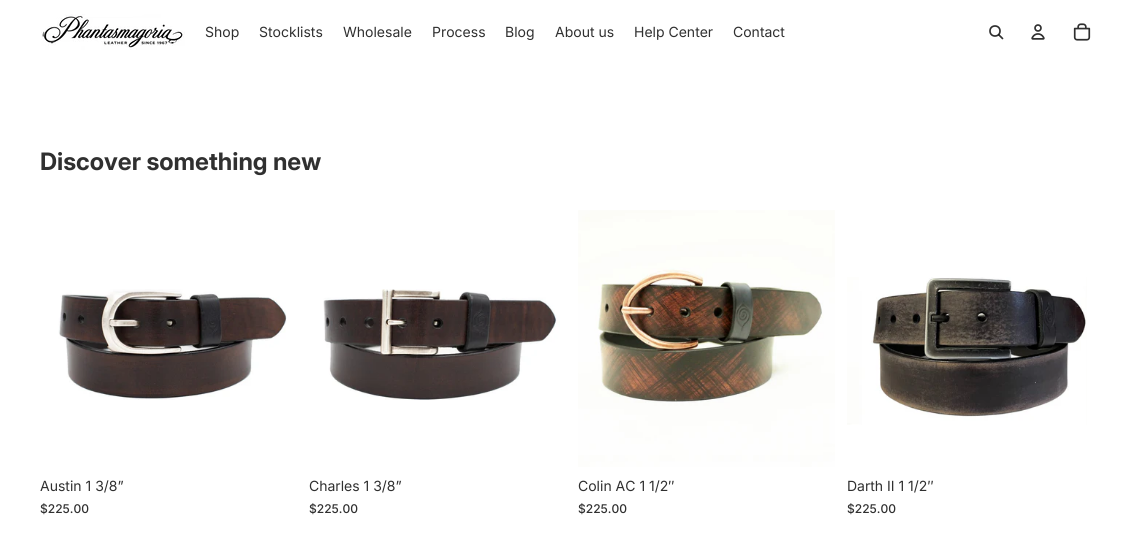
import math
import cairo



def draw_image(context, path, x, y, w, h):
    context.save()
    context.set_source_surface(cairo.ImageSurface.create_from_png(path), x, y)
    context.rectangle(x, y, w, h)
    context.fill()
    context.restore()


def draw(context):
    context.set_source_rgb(1, 1, 1)
    context.paint()
    draw_image(context, "images/1.png", 41, 14, 144, 36)
    context.arc(995, 31, 5, 0, 2 * math.pi)
    context.set_source_rgb(48 / 255, 48 / 255, 48 / 255)
    context.set_line_width(1.7)
    context.stroke()
    context.new_path()
    context.move_to(999, 35)
    context.line_to(1002.5, 38.5)
    context.set_source_rgba(0, 0, 0, 0.81)
    context.set_line_cap(cairo.LineCap.ROUND)
    context.set_line_join(cairo.LineJoin.ROUND)
    context.stroke()
    draw_image(context, "images/2.png", 1031, 24, 14, 16)
    draw_image(context, "images/3.png", 1073, 23, 18, 18)
    draw_image(context, "images/4.png", 58, 289, 229, 111)
    draw_image(context, "images/5.png", 323, 289, 237, 111)
    draw_image(context, "images/6.png", 578, 210, 257, 257)
    draw_image(context, "images/7.png", 847, 277, 240, 148)
    context.select_font_face("Inter")
    context.set_font_size(14)
    context.set_source_rgb(48 / 255, 48 / 255, 48 / 255)
    context.move_to(205, 37)
    context.show_text("Shop")
    context.move_to(259, 37)
    context.show_text("Stocklists")
    context.move_to(343, 37)
    context.show_text("Wholesale")
    context.move_to(432, 37)
    context.show_text("Process")
    context.move_to(505, 37)
    context.show_text("Blog")
    context.move_to(555, 37)
    context.show_text("About us")
    context.move_to(634, 37)
    context.show_text("Help Center")
    context.move_to(733, 37)
    context.show_text("Contact")
    context.select_font_face("Inter", cairo.FontSlant.NORMAL, cairo.FontWeight.BOLD)
    context.set_font_size(24)
    context.move_to(40, 170)
    context.show_text("Discover something new")
    context.select_font_face("Inter")
    context.set_font_size(14)
    context.move_to(40, 491)
    context.show_text("Austin 1 3/8”")
    context.select_font_face("Inter Medium")
    context.set_font_size(12)
    context.move_to(40, 513)
    context.show_text("$225.00")
    context.select_font_face("Inter")
    context.set_font_size(14)
    context.move_to(309, 491)
    context.show_text("Charles 1 3/8”")
    context.select_font_face("Inter Medium")
    context.set_font_size(12)
    context.move_to(309, 513)
    context.show_text("$225.00")
    context.select_font_face("Inter")
    context.set_font_size(14)
    context.move_to(578, 491)
    context.show_text("Colin AC 1 1/2″")
    context.select_font_face("Inter Medium")
    context.set_font_size(12)
    context.move_to(578, 513)
    context.show_text("$225.00")
    context.select_font_face("Inter")
    context.set_font_size(14)
    context.move_to(847, 491)
    context.show_text("Darth II 1 1/2″")
    context.select_font_face("Inter Medium")
    context.set_font_size(12)
    context.move_to(847, 513)
    context.show_text("$225.00")


surface = cairo.ImageSurface(cairo.Format.RGB24, 1144, 559)
context = cairo.Context(surface)
options = cairo.FontOptions()
options.set_hint_metrics(cairo.HintMetrics.OFF)
options.set_hint_style(cairo.HintStyle.NONE)
context.set_font_options(options)
context.set_miter_limit(4)
draw(context)
surface.write_to_png("out.png")
